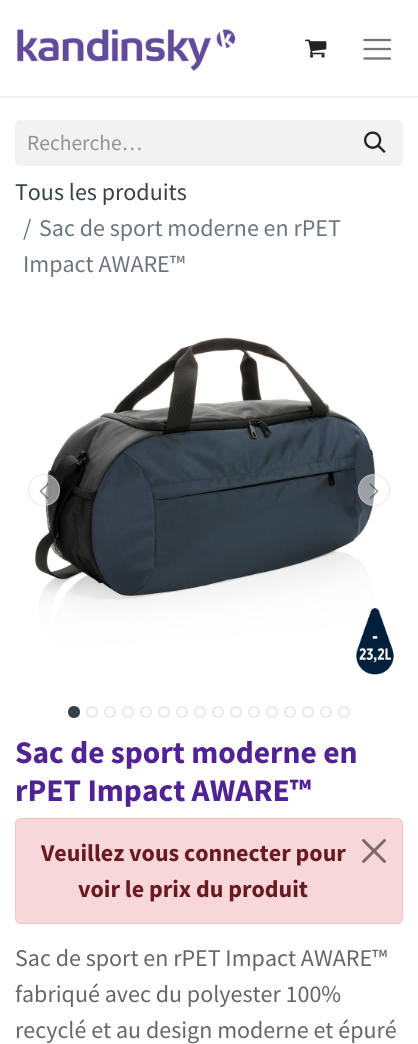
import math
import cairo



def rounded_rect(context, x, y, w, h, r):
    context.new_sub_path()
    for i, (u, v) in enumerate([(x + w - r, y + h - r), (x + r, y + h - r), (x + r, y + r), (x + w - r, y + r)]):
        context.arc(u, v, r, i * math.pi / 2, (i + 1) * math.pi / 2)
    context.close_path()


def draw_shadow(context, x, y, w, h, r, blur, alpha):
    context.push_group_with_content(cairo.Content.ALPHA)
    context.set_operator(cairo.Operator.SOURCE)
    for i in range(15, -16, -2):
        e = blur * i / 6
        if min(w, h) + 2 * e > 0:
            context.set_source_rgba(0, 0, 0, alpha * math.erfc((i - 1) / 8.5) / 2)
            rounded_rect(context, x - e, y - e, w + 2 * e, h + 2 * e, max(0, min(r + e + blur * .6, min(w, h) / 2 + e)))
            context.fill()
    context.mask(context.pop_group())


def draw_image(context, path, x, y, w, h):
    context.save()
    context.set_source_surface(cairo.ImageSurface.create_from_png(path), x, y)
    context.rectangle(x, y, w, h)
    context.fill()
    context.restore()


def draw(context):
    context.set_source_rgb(1, 1, 1)
    context.paint()
    context.save()
    context.rectangle(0, 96, 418, 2)
    context.clip()
    context.set_source_rgb(0, 0, 0)
    draw_shadow(context, 0, 1, 418, 96, 0, 1.5, 0.1)
    context.restore()
    draw_image(context, "images/1.png", 17, 29, 219, 43)
    draw_image(context, "images/2.png", 305, 39, 22, 19)
    context.new_path()
    context.move_to(364.5, 40)
    context.line_to(390, 40)
    context.move_to(364.5, 49)
    context.line_to(390, 49)
    context.move_to(364.5, 58.5)
    context.line_to(390, 58.5)
    context.set_source_rgb(115 / 255, 115 / 255, 115 / 255)
    context.set_line_width(2.3)
    context.set_line_cap(cairo.LineCap.ROUND)
    context.stroke()
    context.set_source_rgb(243 / 255, 242 / 255, 242 / 255)
    context.new_path()
    context.move_to(21, 120)
    context.line_to(348, 120)
    context.line_to(348, 166)
    context.line_to(21, 166)
    context.curve_to(17.5, 166, 15, 163.5, 15, 160)
    context.line_to(15, 126)
    context.curve_to(15, 122.5, 17.5, 120, 21, 120)
    context.close_path()
    context.fill()
    context.new_path()
    context.move_to(347.5, 120.5)
    context.line_to(397, 120.5)
    context.curve_to(400, 120.5, 402.5, 123, 402.5, 126)
    context.line_to(402.5, 160)
    context.curve_to(402.5, 163, 400, 165.5, 397, 165.5)
    context.line_to(347.5, 165.5)
    context.close_path()
    context.fill_preserve()
    context.set_line_width(1)
    context.set_line_cap(cairo.LineCap.BUTT)
    context.stroke()
    draw_image(context, "images/3.png", 364, 131, 22, 22)
    draw_image(context, "images/4.png", 34, 337, 360, 338)
    context.set_source_rgba(1, 1, 1, 0.5)
    context.arc(44, 490, 16, 0, 2 * math.pi)
    context.fill()
    context.arc(44, 490, 15.5, 0, 2 * math.pi)
    context.set_source_rgba(206 / 255, 212 / 255, 218 / 255, 0.5)
    context.stroke()
    draw_image(context, "images/5.png", 39, 483, 10, 17)
    context.set_source_rgba(1, 1, 1, 0.5)
    context.arc(374, 490, 16, 0, 2 * math.pi)
    context.fill()
    context.arc(374, 490, 15.5, 0, 2 * math.pi)
    context.set_source_rgba(206 / 255, 212 / 255, 218 / 255, 0.5)
    context.stroke()
    draw_image(context, "images/6.png", 369, 483, 10, 17)
    context.set_source_rgb(55 / 255, 66 / 255, 74 / 255)
    context.arc(74, 712, 5, 0, 2 * math.pi)
    context.fill_preserve()
    context.set_line_width(2)
    context.stroke()
    context.arc(92, 712, 5, 0, 2 * math.pi)
    context.set_source_rgb(231 / 255, 234 / 255, 237 / 255)
    context.stroke()
    context.arc(110, 712, 5, 0, 2 * math.pi)
    context.stroke()
    context.arc(128, 712, 5, 0, 2 * math.pi)
    context.stroke()
    context.arc(146, 712, 5, 0, 2 * math.pi)
    context.stroke()
    context.arc(164, 712, 5, 0, 2 * math.pi)
    context.stroke()
    context.arc(182, 712, 5, 0, 2 * math.pi)
    context.stroke()
    context.arc(200, 712, 5, 0, 2 * math.pi)
    context.stroke()
    context.arc(218, 712, 5, 0, 2 * math.pi)
    context.stroke()
    context.arc(236, 712, 5, 0, 2 * math.pi)
    context.stroke()
    context.arc(254, 712, 5, 0, 2 * math.pi)
    context.stroke()
    context.arc(272, 712, 5, 0, 2 * math.pi)
    context.stroke()
    context.arc(290, 712, 5, 0, 2 * math.pi)
    context.stroke()
    context.arc(308, 712, 5, 0, 2 * math.pi)
    context.stroke()
    context.arc(326, 712, 5, 0, 2 * math.pi)
    context.stroke()
    context.arc(344, 712, 5, 0, 2 * math.pi)
    context.stroke()
    context.set_source_rgb(248 / 255, 215 / 255, 218 / 255)
    rounded_rect(context, 15.5, 818.5, 387, 105, 5.5)
    context.fill_preserve()
    context.set_source_rgb(245 / 255, 194 / 255, 199 / 255)
    context.set_line_width(1)
    context.stroke()
    draw_image(context, "images/7.png", 362, 839, 24, 24)
    context.select_font_face("Source Sans Pro")
    context.set_font_size(21.5)
    context.set_source_rgb(144 / 255, 146 / 255, 148 / 255)
    context.move_to(27, 150)
    context.show_text("Recherche…")
    context.set_font_size(24)
    context.set_source_rgb(55 / 255, 66 / 255, 74 / 255)
    context.move_to(15, 200)
    context.show_text("Tous les produits")
    context.set_source_rgb(108 / 255, 117 / 255, 125 / 255)
    context.move_to(23, 236)
    context.show_text("/")
    context.move_to(39, 236)
    context.show_text("Sac de sport moderne en rPET")
    context.move_to(23, 272)
    context.show_text("Impact AWARE™")
    context.select_font_face("Source Sans Pro", cairo.FontSlant.NORMAL, cairo.FontWeight.BOLD)
    context.set_font_size(31.5)
    context.set_source_rgb(80 / 255, 34 / 255, 148 / 255)
    context.move_to(15, 763)
    context.show_text("Sac de sport moderne en")
    context.move_to(15, 801)
    context.show_text("rPET Impact AWARE™")
    context.set_font_size(24)
    context.set_source_rgb(106 / 255, 26 / 255, 33 / 255)
    context.move_to(41, 861)
    context.show_text("Veuillez vous connecter pour")
    context.move_to(78, 897)
    context.show_text("voir le prix du produit")
    context.select_font_face("Source Sans Pro")
    context.set_source_rgb(100 / 255, 102 / 255, 105 / 255)
    context.move_to(15, 966)
    context.show_text("Sac de sport en rPET Impact AWARE™")
    context.move_to(15, 1002)
    context.show_text("fabriqué avec du polyester 100%")
    context.move_to(15, 1038)
    context.show_text("recyclé et au design moderne et épuré")


surface = cairo.ImageSurface(cairo.Format.RGB24, 418, 1044)
context = cairo.Context(surface)
options = cairo.FontOptions()
options.set_hint_metrics(cairo.HintMetrics.OFF)
options.set_hint_style(cairo.HintStyle.NONE)
context.set_font_options(options)
context.set_miter_limit(4)
draw(context)
surface.write_to_png("out.png")
